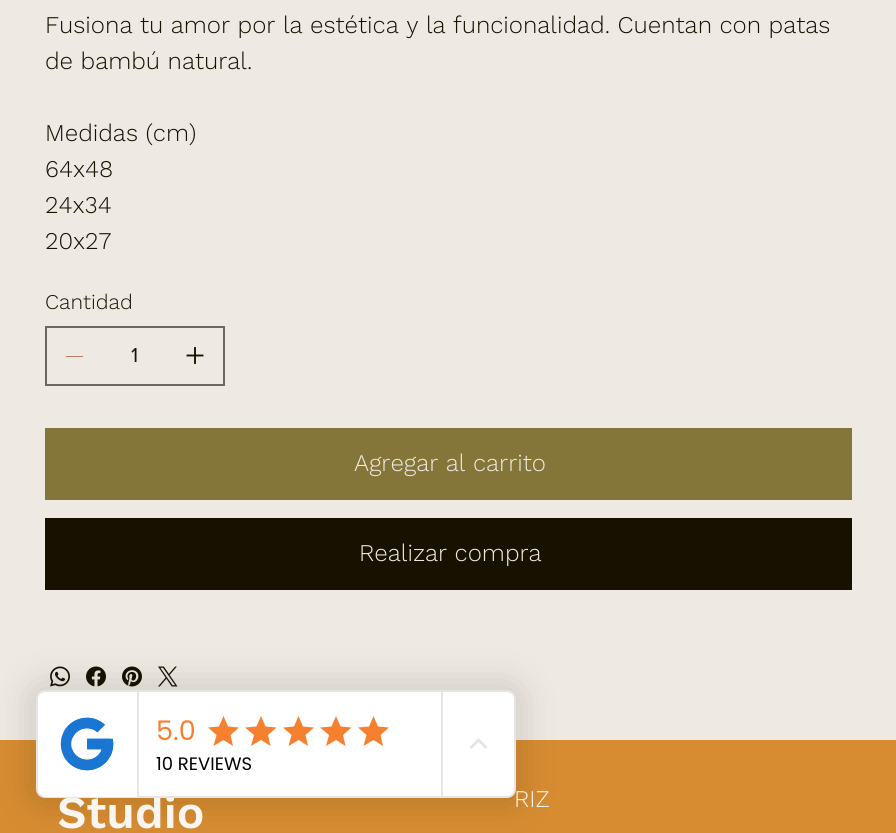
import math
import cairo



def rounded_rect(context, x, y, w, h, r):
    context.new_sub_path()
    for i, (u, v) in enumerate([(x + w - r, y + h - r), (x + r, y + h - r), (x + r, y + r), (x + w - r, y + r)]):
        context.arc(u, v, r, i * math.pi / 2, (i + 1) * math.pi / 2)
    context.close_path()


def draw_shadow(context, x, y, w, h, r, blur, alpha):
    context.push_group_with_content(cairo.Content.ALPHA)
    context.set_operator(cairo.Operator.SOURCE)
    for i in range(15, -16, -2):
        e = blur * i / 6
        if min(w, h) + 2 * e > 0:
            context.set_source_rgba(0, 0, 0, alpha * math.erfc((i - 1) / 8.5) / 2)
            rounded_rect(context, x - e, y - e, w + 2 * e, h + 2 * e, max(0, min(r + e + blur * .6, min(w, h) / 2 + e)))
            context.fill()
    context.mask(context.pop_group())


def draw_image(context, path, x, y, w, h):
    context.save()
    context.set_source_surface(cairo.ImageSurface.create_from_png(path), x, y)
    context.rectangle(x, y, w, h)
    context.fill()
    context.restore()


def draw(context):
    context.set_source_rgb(239 / 255, 233 / 255, 227 / 255)
    context.paint()
    context.rectangle(46, 327, 178, 58)
    context.set_source_rgb(109 / 255, 104 / 255, 91 / 255)
    context.stroke()
    context.set_source_rgb(186 / 255, 127 / 255, 99 / 255)
    context.rectangle(66, 356, 17, 1)
    context.fill()
    draw_image(context, "images/1.png", 186, 347, 18, 17)
    context.set_source_rgb(132 / 255, 117 / 255, 57 / 255)
    context.rectangle(45, 428, 807, 72)
    context.fill()
    context.set_source_rgb(23 / 255, 18 / 255, 0)
    context.rectangle(45, 518, 807, 72)
    context.fill()
    draw_image(context, "images/2.png", 50, 666, 20, 21)
    draw_image(context, "images/3.png", 86, 666, 20, 21)
    draw_image(context, "images/4.png", 122, 666, 20, 21)
    draw_image(context, "images/5.png", 158, 666, 20, 21)
    context.set_source_rgb(215 / 255, 140 / 255, 49 / 255)
    context.rectangle(0, 740, 896, 93)
    context.fill()
    context.set_source_rgb(0, 0, 0)
    draw_shadow(context, 27, 681, 498, 126, 18, 18, 0.12)
    context.select_font_face("Work Sans Light")
    context.set_font_size(24)
    context.set_source_rgb(23 / 255, 18 / 255, 0)
    context.move_to(45, 33)
    context.show_text("Fusiona tu amor por la estética y la funcionalidad. Cuentan con patas")
    context.move_to(45, 69)
    context.show_text("de bambú natural.")
    context.move_to(45, 141)
    context.show_text("Medidas (cm)")
    context.move_to(45, 177)
    context.show_text("64x48")
    context.move_to(45, 213)
    context.show_text("24x34")
    context.move_to(45, 249)
    context.show_text("20x27")
    context.set_font_size(21)
    context.move_to(45, 309)
    context.show_text("Cantidad")
    context.select_font_face("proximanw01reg")
    context.move_to(131, 362)
    context.show_text("1")
    context.select_font_face("Work Sans Light")
    context.set_font_size(24)
    context.set_source_rgb(239 / 255, 233 / 255, 227 / 255)
    context.move_to(354, 471)
    context.show_text("Agregar al carrito")
    context.move_to(359, 561)
    context.show_text("Realizar compra")
    context.select_font_face("Work Sans SemiBold")
    context.set_font_size(46)
    context.set_source_rgb(249 / 255, 246 / 255, 242 / 255)
    context.move_to(57, 828)
    context.show_text("Studio")
    context.select_font_face("Work Sans Light")
    context.set_font_size(24)
    context.move_to(514, 807)
    context.show_text("RIZ")
    context.set_source_rgb(1, 1, 1)
    rounded_rect(context, 37, 691, 478, 106, 8)
    context.fill_preserve()
    context.set_source_rgb(229 / 255, 229 / 255, 229 / 255)
    context.stroke()
    context.set_source_rgb(1, 1, 1)
    context.new_path()
    context.move_to(47, 692)
    context.line_to(138, 692)
    context.line_to(138, 797)
    context.line_to(47, 797)
    context.curve_to(42, 797, 38, 793, 38, 788)
    context.line_to(38, 701)
    context.curve_to(38, 696, 42, 692, 47, 692)
    context.close_path()
    context.fill()
    context.set_source_rgb(229 / 255, 229 / 255, 229 / 255)
    context.rectangle(137, 692, 2, 105)
    context.fill()
    draw_image(context, "images/6.png", 60, 717, 54, 54)
    context.rectangle(441, 692, 2, 105)
    context.fill()
    context.select_font_face("Poppins")
    context.set_font_size(27)
    context.set_source_rgb(247 / 255, 128 / 255, 47 / 255)
    context.move_to(156, 740)
    context.show_text("5.0")
    context.new_path()
    context.move_to(223.5, 740)
    context.line_to(233, 746)
    context.line_to(230.5, 735)
    context.line_to(239, 727.5)
    context.line_to(228, 726.5)
    context.line_to(223.5, 716)
    context.line_to(219, 726.5)
    context.line_to(208, 727.5)
    context.line_to(216.5, 735)
    context.line_to(213.5, 746)
    context.close_path()
    context.fill()
    context.new_path()
    context.move_to(261, 740)
    context.line_to(270.5, 746)
    context.line_to(268, 735)
    context.line_to(276.5, 727.5)
    context.line_to(265.5, 726.5)
    context.line_to(261, 716)
    context.line_to(256.5, 726.5)
    context.line_to(245, 727.5)
    context.line_to(254, 735)
    context.line_to(251, 746)
    context.close_path()
    context.fill()
    context.new_path()
    context.move_to(298.5, 740)
    context.line_to(308, 746)
    context.line_to(305.5, 735)
    context.line_to(314, 727.5)
    context.line_to(303, 726.5)
    context.line_to(298.5, 716)
    context.line_to(294, 726.5)
    context.line_to(283, 727.5)
    context.line_to(291.5, 735)
    context.line_to(288.5, 746)
    context.close_path()
    context.fill()
    context.new_path()
    context.move_to(336, 740)
    context.line_to(345.5, 746)
    context.line_to(343, 735)
    context.line_to(351.5, 727.5)
    context.line_to(340.5, 726.5)
    context.line_to(336, 716)
    context.line_to(331.5, 726.5)
    context.line_to(320, 727.5)
    context.line_to(329, 735)
    context.line_to(326, 746)
    context.close_path()
    context.fill()
    context.new_path()
    context.move_to(373.5, 740)
    context.line_to(383, 746)
    context.line_to(380.5, 735)
    context.line_to(389, 727.5)
    context.line_to(378, 726.5)
    context.line_to(373.5, 716)
    context.line_to(369, 726.5)
    context.line_to(358, 727.5)
    context.line_to(366.5, 735)
    context.line_to(363.5, 746)
    context.close_path()
    context.fill()
    context.set_font_size(18)
    context.set_source_rgb(0, 0, 0)
    context.move_to(156, 770)
    context.show_text("10 REVIEWS")
    context.set_source_rgb(229 / 255, 229 / 255, 229 / 255)
    context.new_path()
    context.move_to(471.5, 749)
    context.line_to(478.5, 742)
    context.line_to(485.5, 749)
    context.line_to(487.5, 747)
    context.line_to(478.5, 738)
    context.line_to(469.5, 747)
    context.close_path()
    context.fill()


surface = cairo.ImageSurface(cairo.Format.RGB24, 896, 833)
context = cairo.Context(surface)
options = cairo.FontOptions()
options.set_hint_metrics(cairo.HintMetrics.OFF)
options.set_hint_style(cairo.HintStyle.NONE)
context.set_font_options(options)
context.set_miter_limit(4)
draw(context)
surface.write_to_png("out.png")
